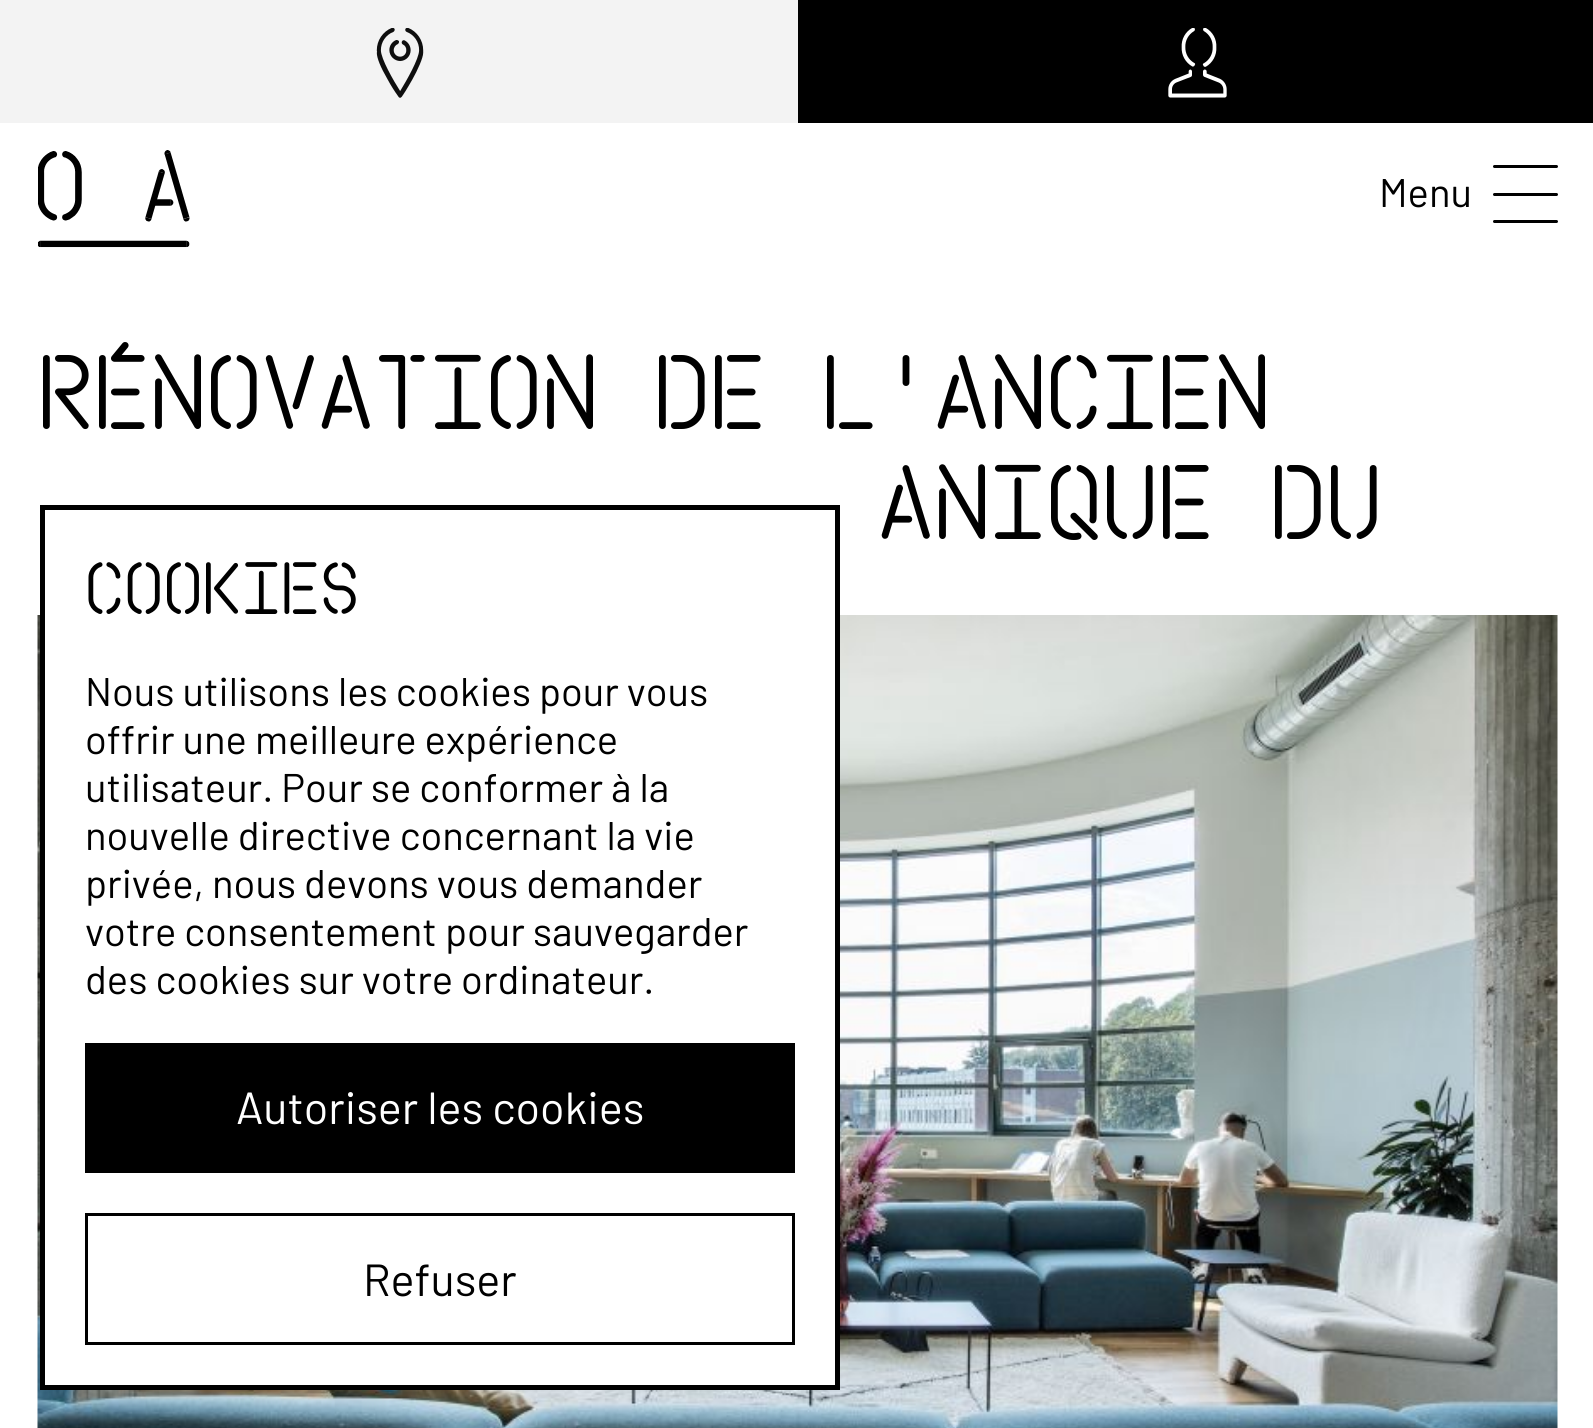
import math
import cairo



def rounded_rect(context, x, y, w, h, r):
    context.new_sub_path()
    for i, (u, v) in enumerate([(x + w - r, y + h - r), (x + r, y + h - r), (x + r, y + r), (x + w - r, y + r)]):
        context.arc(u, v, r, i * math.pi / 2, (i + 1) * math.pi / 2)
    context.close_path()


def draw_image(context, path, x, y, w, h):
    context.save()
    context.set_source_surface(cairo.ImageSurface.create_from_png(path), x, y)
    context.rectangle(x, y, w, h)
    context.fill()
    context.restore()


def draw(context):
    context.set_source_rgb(1, 1, 1)
    context.paint()
    draw_image(context, "images/1.png", 38, 150, 152, 98)
    context.set_source_rgb(243 / 255, 243 / 255, 243 / 255)
    context.rectangle(0, 0, 798, 123)
    context.fill()
    draw_image(context, "images/2.png", 376, 28, 48, 70)
    context.set_source_rgb(0, 0, 0)
    context.rectangle(798, 0, 795, 123)
    context.fill()
    draw_image(context, "images/3.png", 1168, 28, 59, 70)
    rounded_rect(context, 1493, 193, 65, 3, 1.5)
    context.fill()
    rounded_rect(context, 1493, 165, 65, 3, 1.5)
    context.fill()
    rounded_rect(context, 1493, 220, 65, 3, 1.5)
    context.fill()
    draw_image(context, "images/4.png", 37, 615, 1521, 813)
    context.set_source_rgb(1, 1, 1)
    context.rectangle(45, 615, 790, 770)
    context.fill()
    context.rectangle(42.5, 507.5, 795, 880)
    context.set_source_rgb(0, 0, 0)
    context.set_line_width(5)
    context.stroke()
    context.rectangle(85, 1043, 710, 130)
    context.fill()
    context.rectangle(86.5, 1214.5, 707, 129)
    context.set_line_width(3)
    context.stroke()
    context.select_font_face("Barlow")
    context.set_font_size(40)
    context.move_to(1379, 207)
    context.show_text("Menu")
    context.select_font_face("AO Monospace")
    context.set_font_size(100)
    context.move_to(38, 429)
    context.show_text("Rénovation de l'ancien")
    context.move_to(878, 539)
    context.show_text("anique du")
    context.set_font_size(70)
    context.move_to(85, 614)
    context.show_text("Cookies")
    context.select_font_face("Barlow")
    context.set_font_size(40)
    context.move_to(85, 706)
    context.show_text("Nous utilisons les cookies pour vous")
    context.move_to(85, 754)
    context.show_text("offrir une meilleure expérience")
    context.move_to(85, 802)
    context.show_text("utilisateur. Pour se conformer à la")
    context.move_to(85, 850)
    context.show_text("nouvelle directive concernant la vie")
    context.move_to(85, 898)
    context.show_text("privée, nous devons vous demander")
    context.move_to(85, 946)
    context.show_text("votre consentement pour sauvegarder")
    context.move_to(85, 994)
    context.show_text("des cookies sur votre ordinateur.")
    context.set_font_size(45)
    context.set_source_rgb(1, 1, 1)
    context.move_to(236, 1124)
    context.show_text("Autoriser les cookies")
    context.set_source_rgb(0, 0, 0)
    context.move_to(363, 1296)
    context.show_text("Refuser")


surface = cairo.ImageSurface(cairo.Format.RGB24, 1593, 1428)
context = cairo.Context(surface)
options = cairo.FontOptions()
options.set_hint_metrics(cairo.HintMetrics.OFF)
options.set_hint_style(cairo.HintStyle.NONE)
context.set_font_options(options)
context.set_miter_limit(4)
draw(context)
surface.write_to_png("out.png")
